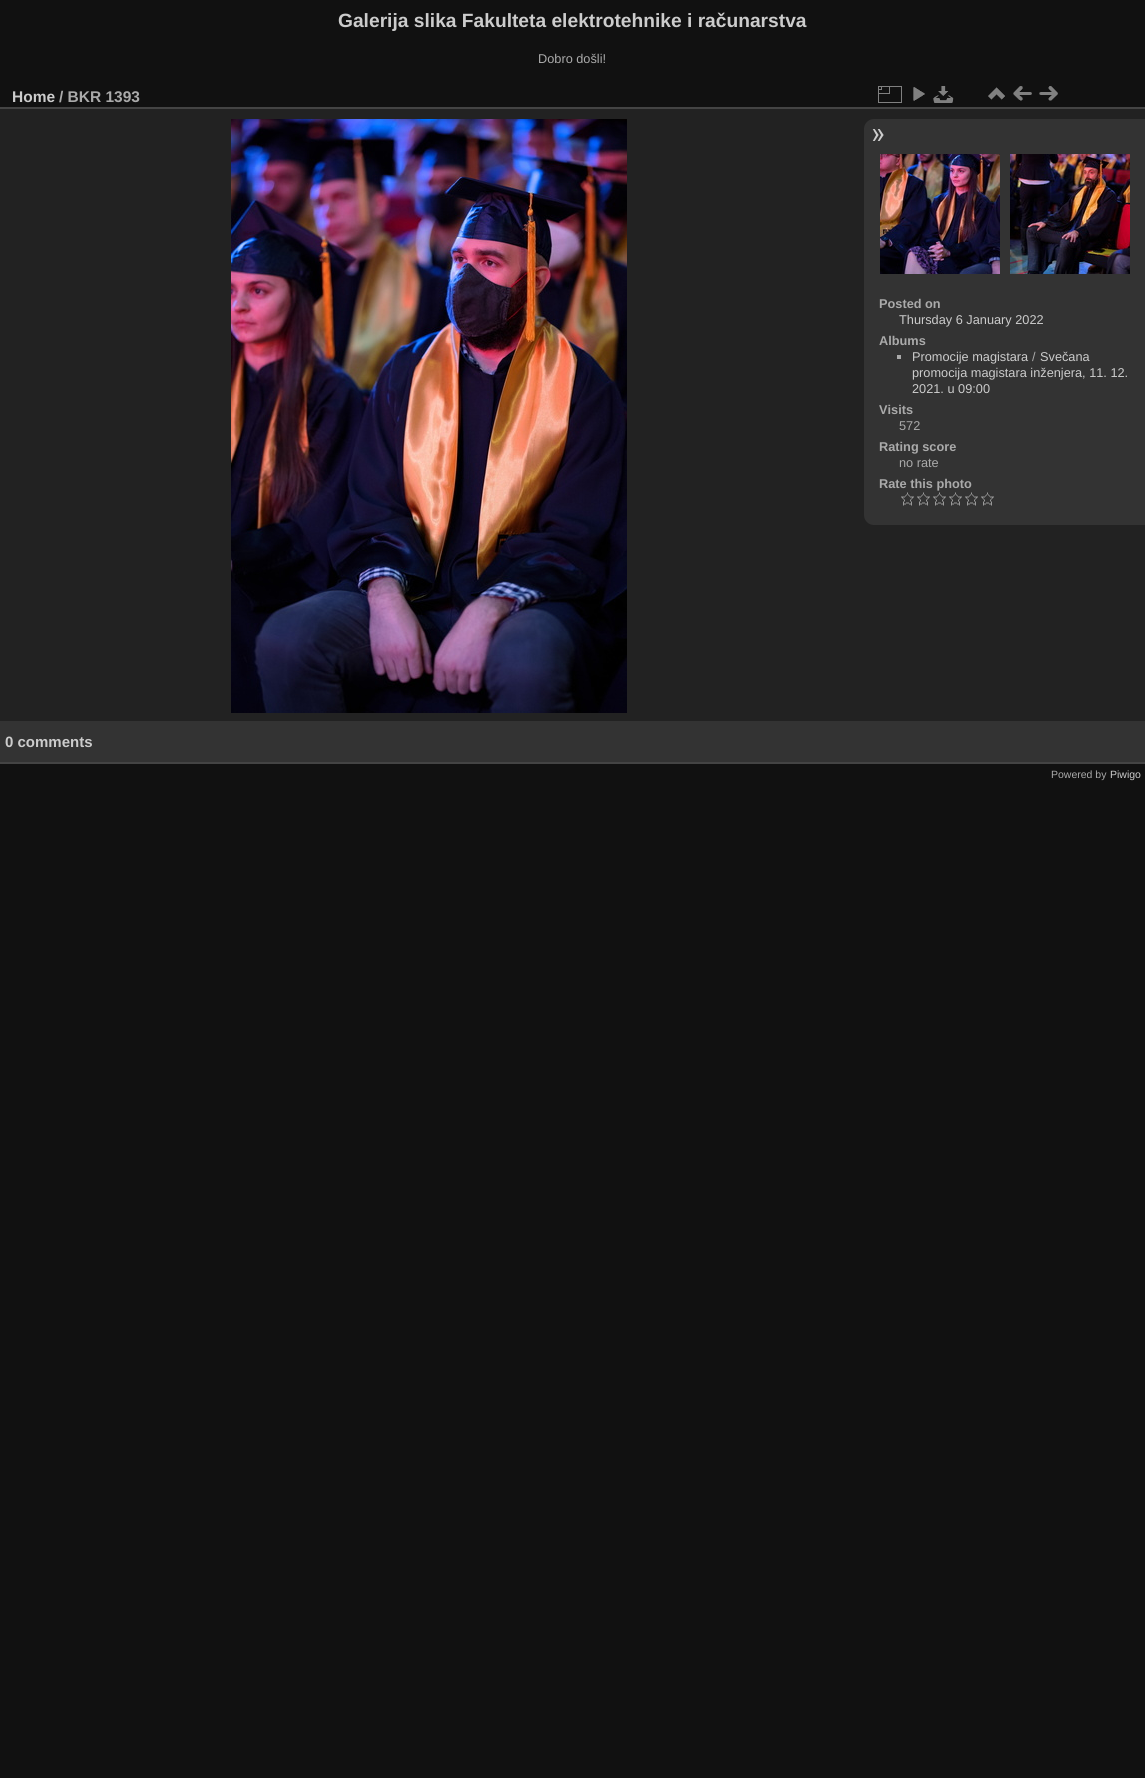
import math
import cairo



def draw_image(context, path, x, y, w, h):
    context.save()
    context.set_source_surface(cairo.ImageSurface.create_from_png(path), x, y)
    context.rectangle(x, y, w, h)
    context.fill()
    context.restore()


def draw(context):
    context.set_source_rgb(17 / 255, 17 / 255, 17 / 255)
    context.paint()
    context.set_source_rgb(34 / 255, 34 / 255, 34 / 255)
    context.rectangle(0, 109, 1145, 612)
    context.fill()
    context.set_source_rgb(68 / 255, 68 / 255, 68 / 255)
    context.rectangle(0, 762, 1145, 2)
    context.fill()
    context.rectangle(0, 107, 1145, 2)
    context.fill()
    draw_image(context, "images/1.png", 878, 86, 24, 17)
    draw_image(context, "images/2.png", 913, 87, 12, 14)
    draw_image(context, "images/3.png", 933, 86, 21, 17)
    draw_image(context, "images/4.png", 988, 87, 17, 13)
    draw_image(context, "images/5.png", 1013, 86, 19, 15)
    draw_image(context, "images/6.png", 1039, 86, 19, 15)
    draw_image(context, "images/7.png", 231, 119, 396, 594)
    context.set_source_rgb(51 / 255, 51 / 255, 51 / 255)
    context.new_path()
    context.move_to(874, 119)
    context.line_to(1145, 119)
    context.line_to(1145, 525)
    context.line_to(874, 525)
    context.curve_to(868.5, 525, 864, 520.5, 864, 515)
    context.line_to(864, 129)
    context.curve_to(864, 123.5, 868.5, 119, 874, 119)
    context.close_path()
    context.fill()
    draw_image(context, "images/8.png", 872, 129, 12, 12)
    draw_image(context, "images/9.png", 880, 154, 120, 120)
    draw_image(context, "images/10.png", 1010, 154, 120, 120)
    context.set_source_rgb(170 / 255, 170 / 255, 170 / 255)
    context.rectangle(897, 355, 4, 4)
    context.fill()
    draw_image(context, "images/11.png", 901, 492, 13, 14)
    draw_image(context, "images/11.png", 917, 492, 13, 14)
    draw_image(context, "images/11.png", 933, 492, 13, 14)
    draw_image(context, "images/11.png", 949, 492, 13, 14)
    draw_image(context, "images/11.png", 965, 492, 13, 14)
    draw_image(context, "images/11.png", 981, 492, 13, 14)
    context.set_source_rgb(51 / 255, 51 / 255, 51 / 255)
    context.rectangle(0, 721, 1145, 41)
    context.fill()
    context.select_font_face("Liberation Sans", cairo.FontSlant.NORMAL, cairo.FontWeight.BOLD)
    context.set_font_size(19.2)
    context.set_source_rgb(204 / 255, 204 / 255, 204 / 255)
    context.move_to(338, 27)
    context.show_text("Galerija slika Fakulteta elektrotehnike i računarstva")
    context.select_font_face("Liberation Sans")
    context.set_font_size(12.75)
    context.set_source_rgb(170 / 255, 170 / 255, 170 / 255)
    context.move_to(538, 63)
    context.show_text("Dobro došli!")
    context.select_font_face("Liberation Sans", cairo.FontSlant.NORMAL, cairo.FontWeight.BOLD)
    context.set_font_size(15.5)
    context.set_source_rgb(204 / 255, 204 / 255, 204 / 255)
    context.move_to(12, 102)
    context.show_text("Home")
    context.set_source_rgb(170 / 255, 170 / 255, 170 / 255)
    context.move_to(59, 102)
    context.show_text("/ BKR 1393")
    context.set_font_size(12.75)
    context.move_to(879, 308)
    context.show_text("Posted on")
    context.select_font_face("Liberation Sans")
    context.set_source_rgb(204 / 255, 204 / 255, 204 / 255)
    context.move_to(899, 324)
    context.show_text("Thursday 6 January 2022")
    context.select_font_face("Liberation Sans", cairo.FontSlant.NORMAL, cairo.FontWeight.BOLD)
    context.set_source_rgb(170 / 255, 170 / 255, 170 / 255)
    context.move_to(879, 345)
    context.show_text("Albums")
    context.select_font_face("Liberation Sans")
    context.set_source_rgb(204 / 255, 204 / 255, 204 / 255)
    context.move_to(912, 361)
    context.show_text("Promocije magistara")
    context.set_source_rgb(170 / 255, 170 / 255, 170 / 255)
    context.move_to(1032, 361)
    context.show_text("/")
    context.set_source_rgb(204 / 255, 204 / 255, 204 / 255)
    context.move_to(1040, 361)
    context.show_text("Svečana")
    context.move_to(912, 377)
    context.show_text("promocija magistara inženjera, 11. 12.")
    context.move_to(912, 393)
    context.show_text("2021. u 09:00")
    context.select_font_face("Liberation Sans", cairo.FontSlant.NORMAL, cairo.FontWeight.BOLD)
    context.set_source_rgb(170 / 255, 170 / 255, 170 / 255)
    context.move_to(879, 414)
    context.show_text("Visits")
    context.select_font_face("Liberation Sans")
    context.move_to(899, 430)
    context.show_text("572")
    context.select_font_face("Liberation Sans", cairo.FontSlant.NORMAL, cairo.FontWeight.BOLD)
    context.move_to(879, 451)
    context.show_text("Rating score")
    context.select_font_face("Liberation Sans")
    context.move_to(899, 467)
    context.show_text("no rate")
    context.select_font_face("Liberation Sans", cairo.FontSlant.NORMAL, cairo.FontWeight.BOLD)
    context.move_to(879, 488)
    context.show_text("Rate this photo")
    context.set_font_size(15)
    context.set_source_rgb(204 / 255, 204 / 255, 204 / 255)
    context.move_to(5, 747)
    context.show_text("0 comments")
    context.select_font_face("Liberation Sans")
    context.set_font_size(10.5)
    context.set_source_rgb(170 / 255, 170 / 255, 170 / 255)
    context.move_to(1051, 778)
    context.show_text("Powered by")
    context.set_source_rgb(204 / 255, 204 / 255, 204 / 255)
    context.move_to(1110, 778)
    context.show_text("Piwigo")


surface = cairo.ImageSurface(cairo.Format.RGB24, 1145, 1778)
context = cairo.Context(surface)
options = cairo.FontOptions()
options.set_hint_metrics(cairo.HintMetrics.OFF)
options.set_hint_style(cairo.HintStyle.NONE)
context.set_font_options(options)
context.set_miter_limit(4)
draw(context)
surface.write_to_png("out.png")
